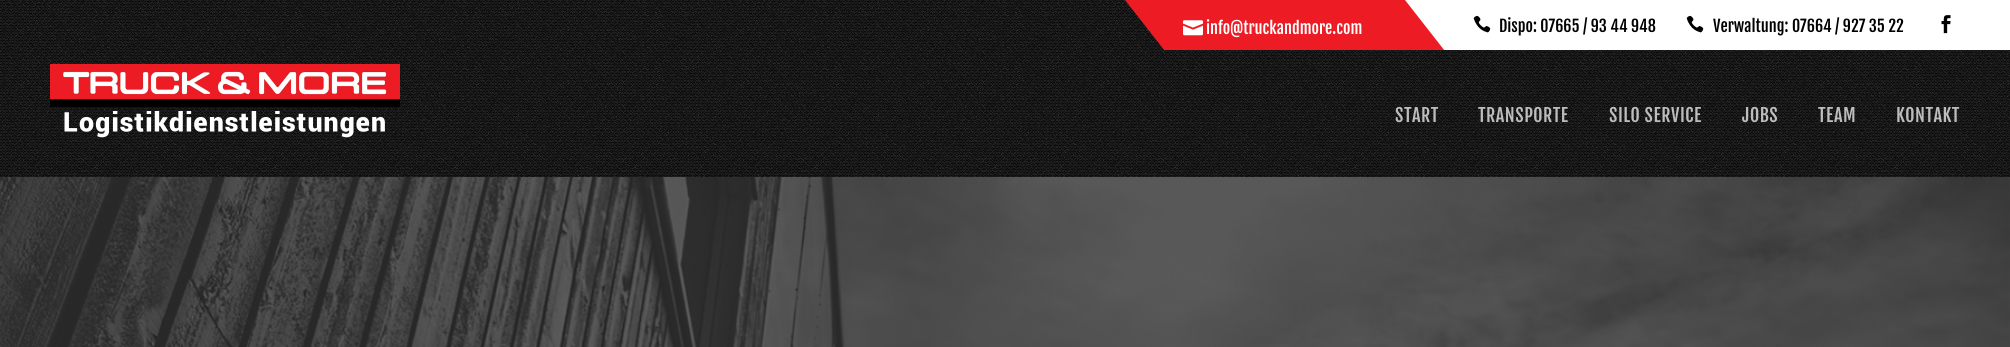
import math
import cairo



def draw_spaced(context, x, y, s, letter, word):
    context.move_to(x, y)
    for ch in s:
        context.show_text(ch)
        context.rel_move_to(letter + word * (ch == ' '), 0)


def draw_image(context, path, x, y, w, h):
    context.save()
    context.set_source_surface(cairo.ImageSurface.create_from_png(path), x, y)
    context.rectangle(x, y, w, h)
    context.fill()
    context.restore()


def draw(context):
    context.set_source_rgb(1, 1, 1)
    context.paint()
    draw_image(context, "images/1.png", 0, 0, 2010, 54)
    draw_image(context, "images/2.png", 1125, 0, 320, 50)
    draw_image(context, "images/3.png", 1183, 20, 20, 16)
    draw_image(context, "images/4.png", 1405, 0, 605, 50)
    draw_image(context, "images/5.png", 1473, 15, 18, 18)
    draw_image(context, "images/5.png", 1686, 15, 18, 18)
    draw_image(context, "images/6.png", 1941, 15, 10, 19)
    draw_image(context, "images/7.png", 0, 54, 2010, 123)
    draw_image(context, "images/8.png", 50, 64, 350, 74)
    draw_image(context, "images/9.png", 0, 177, 2010, 170)
    context.select_font_face("Fjalla One")
    context.set_font_size(16)
    context.set_source_rgb(1, 1, 1)
    context.move_to(1206, 34)
    context.show_text("info@truckandmore.com")
    context.set_source_rgb(0, 0, 0)
    context.move_to(1499, 32)
    context.show_text("Dispo: 07665 / 93 44 948")
    context.move_to(1713, 32)
    context.show_text("Verwaltung: 07664 / 927 35 22")
    context.set_font_size(18)
    context.set_source_rgb(189 / 255, 189 / 255, 189 / 255)
    draw_spaced(context, 1395, 122, "START", 0.5, 0)
    draw_spaced(context, 1478, 122, "TRANSPORTE", 0.5, 0)
    draw_spaced(context, 1609, 122, "SILO SERVICE", 0.5, 0)
    draw_spaced(context, 1742, 122, "JOBS", 0.5, 0)
    draw_spaced(context, 1818, 122, "TEAM", 0.5, 0)
    draw_spaced(context, 1896, 122, "KONTAKT", 0.5, 0)


surface = cairo.ImageSurface(cairo.Format.RGB24, 2010, 347)
context = cairo.Context(surface)
options = cairo.FontOptions()
options.set_hint_metrics(cairo.HintMetrics.OFF)
options.set_hint_style(cairo.HintStyle.NONE)
context.set_font_options(options)
context.set_miter_limit(4)
draw(context)
surface.write_to_png("out.png")
